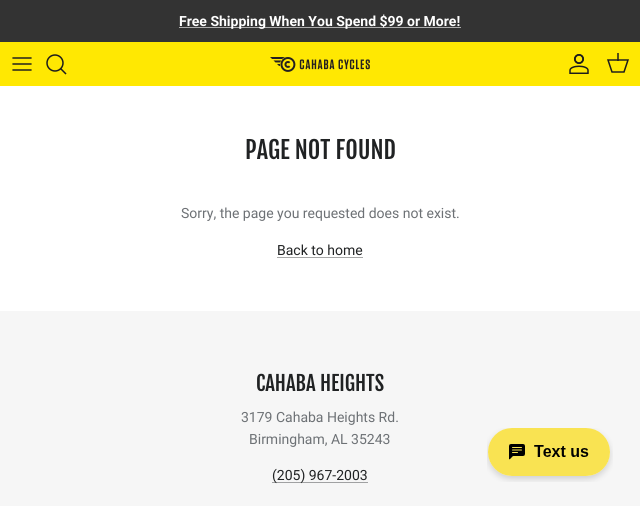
import math
import cairo



def draw_image(context, path, x, y, w, h):
    context.save()
    context.set_source_surface(cairo.ImageSurface.create_from_png(path), x, y)
    context.rectangle(x, y, w, h)
    context.fill()
    context.restore()


def draw(context):
    context.set_source_rgb(1, 1, 1)
    context.paint()
    context.set_source_rgb(51 / 255, 51 / 255, 51 / 255)
    context.rectangle(0, 0, 640, 42)
    context.fill()
    context.set_source_rgb(173 / 255, 173 / 255, 173 / 255)
    context.rectangle(179, 27, 282, 1)
    context.fill()
    context.set_source_rgb(1, 232 / 255, 2 / 255)
    context.rectangle(0, 42, 640, 44)
    context.fill()
    context.new_path()
    context.move_to(13, 64)
    context.line_to(31, 64)
    context.move_to(13, 58)
    context.line_to(31, 58)
    context.move_to(13, 70)
    context.line_to(31, 70)
    context.set_source_rgb(28 / 255, 28 / 255, 28 / 255)
    context.set_line_width(1.5)
    context.set_line_cap(cairo.LineCap.ROUND)
    context.set_line_join(cairo.LineJoin.ROUND)
    context.stroke()
    context.arc(55, 63, 8, 0, 2 * math.pi)
    context.set_line_cap(cairo.LineCap.BUTT)
    context.set_line_join(cairo.LineJoin.MITER)
    context.stroke()
    context.new_path()
    context.move_to(61, 69)
    context.line_to(65.5, 73.5)
    context.set_line_cap(cairo.LineCap.SQUARE)
    context.stroke()
    draw_image(context, "images/1.png", 270, 57, 100, 15)
    draw_image(context, "images/2.png", 569, 54, 20, 20)
    context.new_path()
    context.move_to(608, 60)
    context.line_to(628, 60)
    context.line_to(624, 72)
    context.line_to(612, 72)
    context.close_path()
    context.set_line_cap(cairo.LineCap.BUTT)
    context.stroke()
    context.set_source_rgba(28 / 255, 28 / 255, 28 / 255, 0.75)
    context.rectangle(617, 53, 2, 8)
    context.fill()
    context.set_source_rgb(166 / 255, 167 / 255, 167 / 255)
    context.rectangle(277, 257, 86, 1)
    context.fill()
    context.set_source_rgb(246 / 255, 246 / 255, 246 / 255)
    context.rectangle(0, 311, 640, 195)
    context.fill()
    context.set_source_rgb(160 / 255, 161 / 255, 162 / 255)
    context.rectangle(272, 482, 96, 1)
    context.fill()
    draw_image(context, "images/3.png", 487, 428, 126, 54)
    context.select_font_face("Roboto", cairo.FontSlant.NORMAL, cairo.FontWeight.BOLD)
    context.set_font_size(14)
    context.set_source_rgb(1, 1, 1)
    context.move_to(179, 26)
    context.show_text("Free Shipping When You Spend $99 or More!")
    context.select_font_face("Fjalla One")
    context.set_font_size(24)
    context.set_source_rgb(32 / 255, 34 / 255, 35 / 255)
    context.move_to(245, 159)
    context.show_text("PAGE NOT FOUND")
    context.select_font_face("Roboto")
    context.set_font_size(14)
    context.set_source_rgb(109 / 255, 113 / 255, 117 / 255)
    context.move_to(181, 218)
    context.show_text("Sorry, the page you requested does not exist.")
    context.set_source_rgb(32 / 255, 34 / 255, 35 / 255)
    context.move_to(277, 255)
    context.show_text("Back to home")
    context.select_font_face("Fjalla One")
    context.set_font_size(20.5)
    context.move_to(256, 391)
    context.show_text("CAHABA HEIGHTS")
    context.select_font_face("Roboto")
    context.set_font_size(14)
    context.set_source_rgb(109 / 255, 113 / 255, 117 / 255)
    context.move_to(241, 422)
    context.show_text("3179 Cahaba Heights Rd.")
    context.move_to(249, 444)
    context.show_text("Birmingham, AL 35243")
    context.set_source_rgb(32 / 255, 34 / 255, 35 / 255)
    context.move_to(272, 480)
    context.show_text("(205) 967-2003")


surface = cairo.ImageSurface(cairo.Format.RGB24, 640, 506)
context = cairo.Context(surface)
options = cairo.FontOptions()
options.set_hint_metrics(cairo.HintMetrics.OFF)
options.set_hint_style(cairo.HintStyle.NONE)
context.set_font_options(options)
context.set_miter_limit(4)
draw(context)
surface.write_to_png("out.png")
